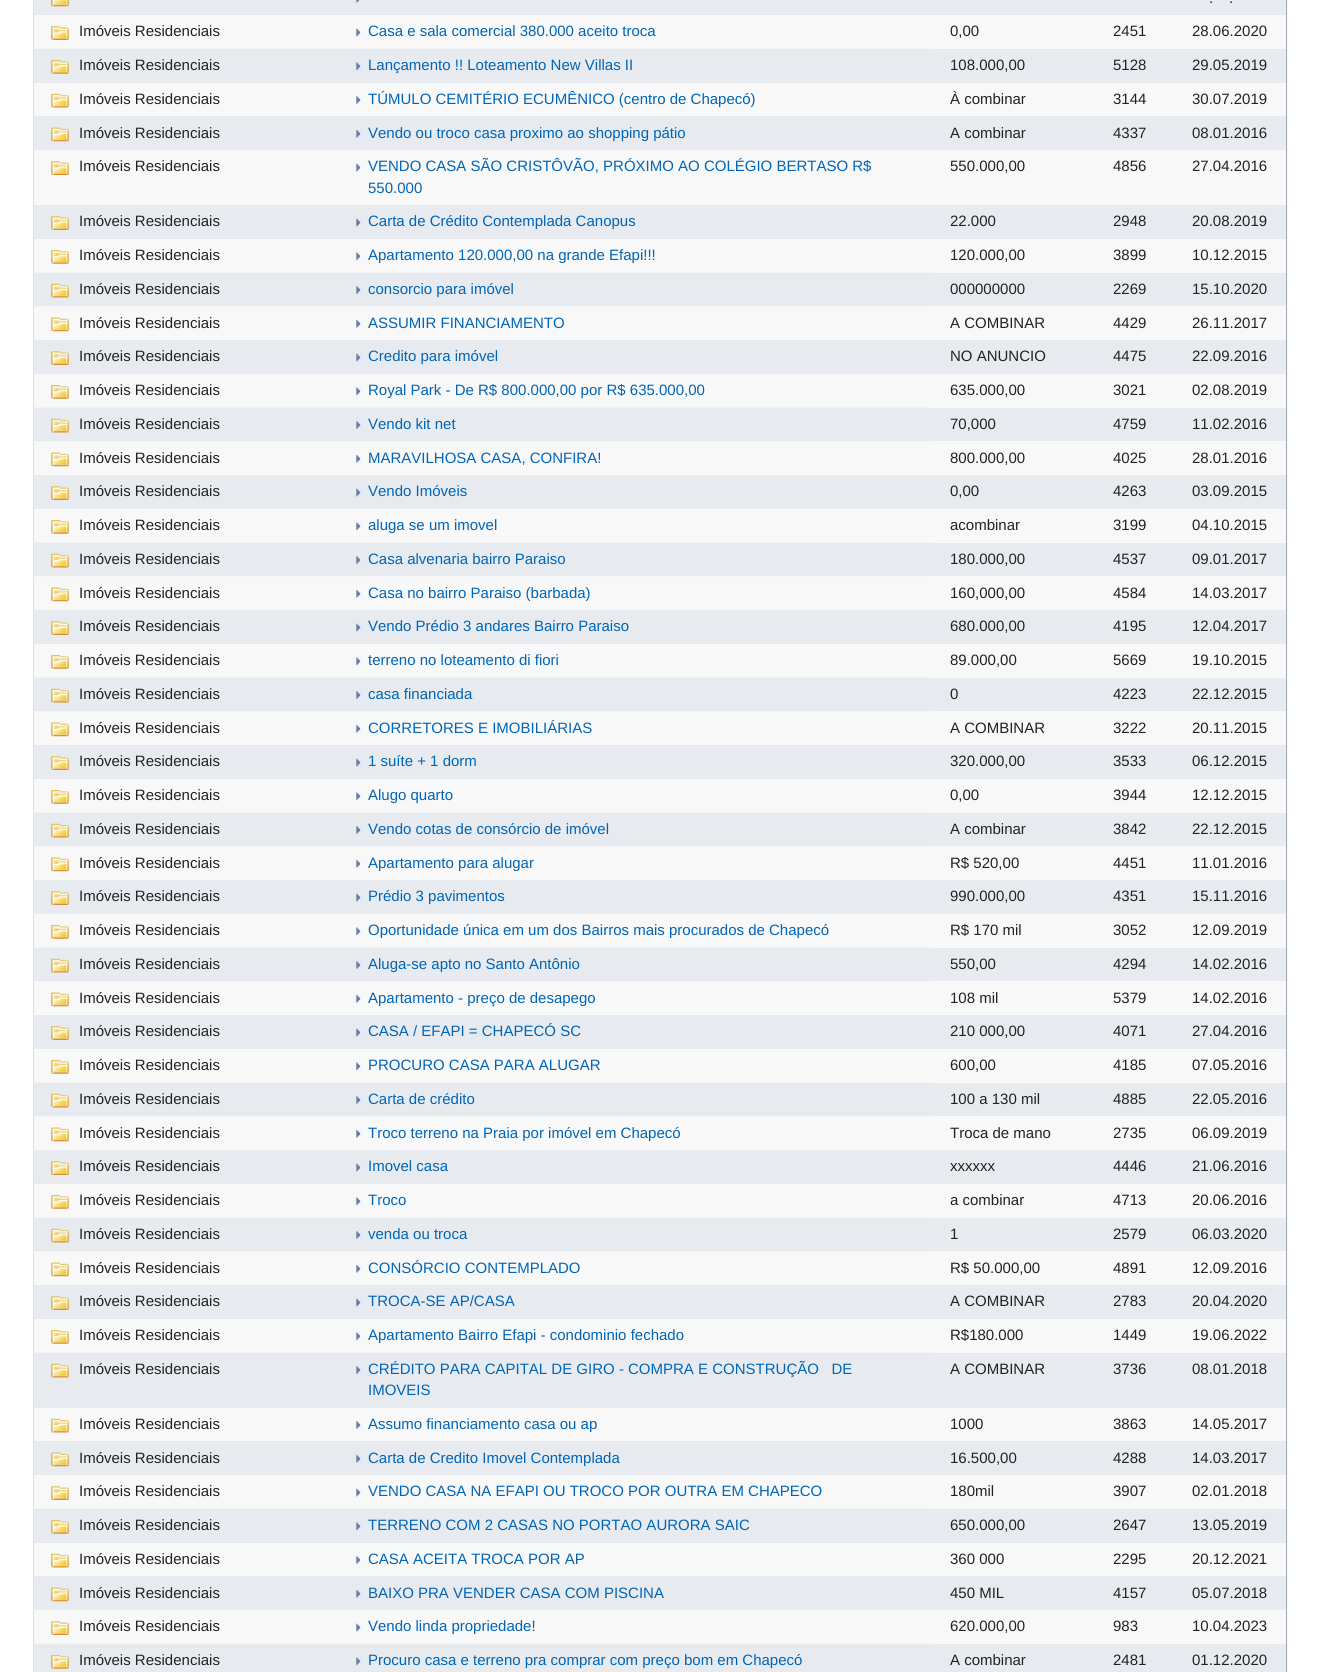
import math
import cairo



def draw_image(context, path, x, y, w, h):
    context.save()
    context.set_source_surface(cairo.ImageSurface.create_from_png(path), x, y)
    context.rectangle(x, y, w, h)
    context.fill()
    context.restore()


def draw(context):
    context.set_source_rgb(1, 1, 1)
    context.paint()
    context.set_source_rgb(248 / 255, 248 / 255, 248 / 255)
    context.rectangle(34, 0, 1254, 1672)
    context.fill()
    context.set_source_rgb(163 / 255, 170 / 255, 183 / 255)
    context.rectangle(1286, 0, 1, 1672)
    context.fill()
    context.set_source_rgb(222 / 255, 222 / 255, 222 / 255)
    context.rectangle(33, 0, 1, 1672)
    context.fill()
    context.set_source_rgb(231 / 255, 235 / 255, 240 / 255)
    context.rectangle(69, 0, 1217, 15)
    context.fill()
    draw_image(context, "images/1.png", 33, 0, 36, 15)
    draw_image(context, "images/2.png", 356, 0, 4, 3)
    draw_image(context, "images/3.png", 51, 26, 18, 14)
    draw_image(context, "images/4.png", 356, 28, 5, 9)
    context.rectangle(34, 49, 1252, 34)
    context.fill()
    draw_image(context, "images/5.png", 33, 48, 303, 34)
    draw_image(context, "images/6.png", 337, 48, 594, 23)
    draw_image(context, "images/7.png", 51, 93, 18, 15)
    draw_image(context, "images/8.png", 356, 96, 5, 8)
    context.rectangle(34, 116, 1252, 34)
    context.fill()
    draw_image(context, "images/9.png", 33, 117, 36, 33)
    draw_image(context, "images/10.png", 356, 129, 5, 9)
    draw_image(context, "images/3.png", 51, 161, 18, 14)
    draw_image(context, "images/4.png", 356, 163, 5, 9)
    context.rectangle(34, 205, 1252, 34)
    context.fill()
    draw_image(context, "images/11.png", 33, 205, 36, 33)
    draw_image(context, "images/12.png", 356, 218, 5, 9)
    draw_image(context, "images/13.png", 51, 250, 18, 14)
    draw_image(context, "images/14.png", 356, 252, 5, 9)
    context.rectangle(336, 273, 950, 33)
    context.fill()
    draw_image(context, "images/15.png", 33, 272, 303, 35)
    draw_image(context, "images/16.png", 336, 272, 595, 35)
    draw_image(context, "images/17.png", 51, 317, 18, 15)
    draw_image(context, "images/18.png", 356, 319, 5, 9)
    context.rectangle(34, 340, 1252, 34)
    context.fill()
    draw_image(context, "images/11.png", 33, 340, 36, 33)
    draw_image(context, "images/12.png", 356, 353, 5, 9)
    draw_image(context, "images/13.png", 51, 385, 18, 14)
    draw_image(context, "images/14.png", 356, 387, 5, 9)
    context.rectangle(336, 408, 950, 33)
    context.fill()
    draw_image(context, "images/15.png", 33, 407, 303, 35)
    draw_image(context, "images/16.png", 336, 407, 595, 35)
    draw_image(context, "images/17.png", 51, 452, 18, 15)
    draw_image(context, "images/18.png", 356, 454, 5, 9)
    context.rectangle(34, 475, 1252, 34)
    context.fill()
    draw_image(context, "images/11.png", 33, 475, 36, 33)
    draw_image(context, "images/12.png", 356, 488, 5, 9)
    draw_image(context, "images/13.png", 51, 520, 18, 14)
    draw_image(context, "images/14.png", 356, 522, 5, 9)
    context.rectangle(336, 543, 950, 33)
    context.fill()
    draw_image(context, "images/15.png", 33, 542, 303, 35)
    draw_image(context, "images/16.png", 336, 542, 595, 35)
    draw_image(context, "images/17.png", 51, 587, 18, 15)
    draw_image(context, "images/18.png", 356, 589, 5, 9)
    context.rectangle(34, 610, 1252, 34)
    context.fill()
    draw_image(context, "images/11.png", 33, 610, 36, 33)
    draw_image(context, "images/12.png", 356, 623, 5, 9)
    draw_image(context, "images/13.png", 51, 655, 18, 14)
    draw_image(context, "images/14.png", 356, 657, 5, 9)
    context.rectangle(336, 678, 950, 33)
    context.fill()
    draw_image(context, "images/15.png", 33, 677, 303, 35)
    draw_image(context, "images/16.png", 336, 677, 595, 35)
    draw_image(context, "images/17.png", 51, 722, 18, 15)
    draw_image(context, "images/18.png", 356, 724, 5, 9)
    context.rectangle(34, 745, 1252, 34)
    context.fill()
    draw_image(context, "images/11.png", 33, 745, 36, 33)
    draw_image(context, "images/12.png", 356, 758, 5, 9)
    draw_image(context, "images/19.png", 51, 790, 18, 14)
    draw_image(context, "images/14.png", 356, 792, 5, 9)
    context.rectangle(336, 813, 950, 33)
    context.fill()
    draw_image(context, "images/15.png", 33, 812, 303, 35)
    draw_image(context, "images/16.png", 336, 812, 595, 35)
    draw_image(context, "images/17.png", 51, 857, 18, 15)
    draw_image(context, "images/18.png", 356, 859, 5, 9)
    context.rectangle(34, 880, 1252, 34)
    context.fill()
    draw_image(context, "images/11.png", 33, 880, 36, 33)
    draw_image(context, "images/12.png", 356, 893, 5, 9)
    draw_image(context, "images/13.png", 51, 925, 18, 14)
    draw_image(context, "images/14.png", 356, 927, 5, 9)
    context.rectangle(336, 948, 950, 33)
    context.fill()
    draw_image(context, "images/15.png", 33, 947, 303, 35)
    draw_image(context, "images/16.png", 336, 947, 595, 35)
    draw_image(context, "images/17.png", 51, 992, 18, 15)
    draw_image(context, "images/18.png", 356, 994, 5, 9)
    context.rectangle(34, 1015, 1252, 34)
    context.fill()
    draw_image(context, "images/11.png", 33, 1015, 36, 33)
    draw_image(context, "images/12.png", 356, 1028, 5, 9)
    draw_image(context, "images/13.png", 51, 1060, 18, 14)
    draw_image(context, "images/14.png", 356, 1062, 5, 9)
    context.rectangle(336, 1083, 950, 33)
    context.fill()
    draw_image(context, "images/15.png", 33, 1082, 303, 35)
    draw_image(context, "images/16.png", 336, 1082, 595, 35)
    draw_image(context, "images/17.png", 51, 1127, 18, 15)
    draw_image(context, "images/18.png", 356, 1129, 5, 9)
    context.rectangle(34, 1150, 1252, 34)
    context.fill()
    draw_image(context, "images/11.png", 33, 1150, 36, 33)
    draw_image(context, "images/12.png", 356, 1163, 5, 9)
    draw_image(context, "images/13.png", 51, 1195, 18, 14)
    draw_image(context, "images/14.png", 356, 1197, 5, 9)
    context.rectangle(336, 1218, 950, 33)
    context.fill()
    draw_image(context, "images/15.png", 33, 1217, 303, 35)
    draw_image(context, "images/16.png", 336, 1217, 595, 35)
    draw_image(context, "images/17.png", 51, 1262, 18, 15)
    draw_image(context, "images/18.png", 356, 1264, 5, 9)
    context.rectangle(34, 1285, 1252, 34)
    context.fill()
    draw_image(context, "images/11.png", 33, 1285, 36, 33)
    draw_image(context, "images/12.png", 356, 1298, 5, 9)
    draw_image(context, "images/13.png", 51, 1330, 18, 14)
    draw_image(context, "images/14.png", 356, 1332, 5, 9)
    context.rectangle(34, 1353, 1252, 55)
    context.fill()
    draw_image(context, "images/20.png", 33, 1352, 303, 55)
    draw_image(context, "images/21.png", 336, 1352, 595, 22)
    draw_image(context, "images/7.png", 51, 1418, 18, 15)
    draw_image(context, "images/8.png", 356, 1421, 5, 8)
    context.rectangle(34, 1441, 1252, 34)
    context.fill()
    draw_image(context, "images/9.png", 33, 1442, 36, 33)
    draw_image(context, "images/10.png", 356, 1454, 5, 9)
    draw_image(context, "images/3.png", 51, 1486, 18, 14)
    draw_image(context, "images/4.png", 356, 1488, 5, 9)
    context.rectangle(34, 1509, 1252, 34)
    context.fill()
    draw_image(context, "images/5.png", 33, 1508, 303, 34)
    draw_image(context, "images/6.png", 337, 1508, 594, 23)
    draw_image(context, "images/7.png", 51, 1553, 18, 15)
    draw_image(context, "images/8.png", 356, 1556, 5, 8)
    context.rectangle(34, 1576, 1252, 34)
    context.fill()
    draw_image(context, "images/9.png", 33, 1577, 36, 33)
    draw_image(context, "images/10.png", 356, 1589, 5, 9)
    draw_image(context, "images/3.png", 51, 1621, 18, 14)
    draw_image(context, "images/4.png", 356, 1623, 5, 9)
    context.rectangle(336, 1644, 950, 28)
    context.fill()
    draw_image(context, "images/22.png", 33, 1643, 303, 29)
    draw_image(context, "images/6.png", 337, 1643, 594, 23)
    context.select_font_face("Liberation Sans")
    context.set_font_size(15)
    context.set_source_rgb(34 / 255, 34 / 255, 34 / 255)
    context.move_to(1209, 3)
    context.show_text(".")
    context.move_to(1229, 3)
    context.show_text(".")
    context.move_to(79, 36)
    context.show_text("Imóveis Residenciais")
    context.set_source_rgb(0, 101 / 255, 183 / 255)
    context.move_to(368, 36)
    context.show_text("Casa e sala comercial 380.000 aceito troca")
    context.set_source_rgb(34 / 255, 34 / 255, 34 / 255)
    context.move_to(950, 36)
    context.show_text("0,00")
    context.move_to(1113, 36)
    context.show_text("2451")
    context.move_to(1192, 36)
    context.show_text("28.06.2020")
    context.move_to(79, 70)
    context.show_text("Imóveis Residenciais")
    context.set_source_rgb(0, 101 / 255, 183 / 255)
    context.move_to(368, 70)
    context.show_text("Lançamento !! Loteamento New Villas II")
    context.set_source_rgb(34 / 255, 34 / 255, 34 / 255)
    context.move_to(950, 70)
    context.show_text("108.000,00")
    context.move_to(1113, 70)
    context.show_text("5128")
    context.move_to(1192, 70)
    context.show_text("29.05.2019")
    context.move_to(79, 104)
    context.show_text("Imóveis Residenciais")
    context.set_source_rgb(0, 101 / 255, 183 / 255)
    context.move_to(368, 104)
    context.show_text("TÚMULO CEMITÉRIO ECUMÊNICO (centro de Chapecó)")
    context.set_source_rgb(34 / 255, 34 / 255, 34 / 255)
    context.move_to(950, 104)
    context.show_text("À combinar")
    context.move_to(1113, 104)
    context.show_text("3144")
    context.move_to(1192, 104)
    context.show_text("30.07.2019")
    context.move_to(79, 138)
    context.show_text("Imóveis Residenciais")
    context.set_source_rgb(0, 101 / 255, 183 / 255)
    context.move_to(368, 138)
    context.show_text("Vendo ou troco casa proximo ao shopping pátio")
    context.set_source_rgb(34 / 255, 34 / 255, 34 / 255)
    context.move_to(950, 138)
    context.show_text("A combinar")
    context.move_to(1113, 138)
    context.show_text("4337")
    context.move_to(1192, 138)
    context.show_text("08.01.2016")
    context.move_to(79, 171)
    context.show_text("Imóveis Residenciais")
    context.set_source_rgb(0, 101 / 255, 183 / 255)
    context.move_to(368, 171)
    context.show_text("VENDO CASA SÃO CRISTÔVÃO, PRÓXIMO AO COLÉGIO BERTASO R$")
    context.move_to(368, 193)
    context.show_text("550.000")
    context.set_source_rgb(34 / 255, 34 / 255, 34 / 255)
    context.move_to(950, 171)
    context.show_text("550.000,00")
    context.move_to(1113, 171)
    context.show_text("4856")
    context.move_to(1192, 171)
    context.show_text("27.04.2016")
    context.move_to(79, 226)
    context.show_text("Imóveis Residenciais")
    context.set_source_rgb(0, 101 / 255, 183 / 255)
    context.move_to(368, 226)
    context.show_text("Carta de Crédito Contemplada Canopus")
    context.set_source_rgb(34 / 255, 34 / 255, 34 / 255)
    context.move_to(950, 226)
    context.show_text("22.000")
    context.move_to(1113, 226)
    context.show_text("2948")
    context.move_to(1192, 226)
    context.show_text("20.08.2019")
    context.move_to(79, 260)
    context.show_text("Imóveis Residenciais")
    context.set_source_rgb(0, 101 / 255, 183 / 255)
    context.move_to(368, 260)
    context.show_text("Apartamento 120.000,00 na grande Efapi!!!")
    context.set_source_rgb(34 / 255, 34 / 255, 34 / 255)
    context.move_to(950, 260)
    context.show_text("120.000,00")
    context.move_to(1113, 260)
    context.show_text("3899")
    context.move_to(1192, 260)
    context.show_text("10.12.2015")
    context.move_to(79, 294)
    context.show_text("Imóveis Residenciais")
    context.set_source_rgb(0, 101 / 255, 183 / 255)
    context.move_to(368, 294)
    context.show_text("consorcio para imóvel")
    context.set_source_rgb(34 / 255, 34 / 255, 34 / 255)
    context.move_to(950, 294)
    context.show_text("000000000")
    context.move_to(1113, 294)
    context.show_text("2269")
    context.move_to(1192, 294)
    context.show_text("15.10.2020")
    context.move_to(79, 328)
    context.show_text("Imóveis Residenciais")
    context.set_source_rgb(0, 101 / 255, 183 / 255)
    context.move_to(368, 328)
    context.show_text("ASSUMIR FINANCIAMENTO")
    context.set_source_rgb(34 / 255, 34 / 255, 34 / 255)
    context.move_to(950, 328)
    context.show_text("A COMBINAR")
    context.move_to(1113, 328)
    context.show_text("4429")
    context.move_to(1192, 328)
    context.show_text("26.11.2017")
    context.move_to(79, 361)
    context.show_text("Imóveis Residenciais")
    context.set_source_rgb(0, 101 / 255, 183 / 255)
    context.move_to(368, 361)
    context.show_text("Credito para imóvel")
    context.set_source_rgb(34 / 255, 34 / 255, 34 / 255)
    context.move_to(950, 361)
    context.show_text("NO ANUNCIO")
    context.move_to(1113, 361)
    context.show_text("4475")
    context.move_to(1192, 361)
    context.show_text("22.09.2016")
    context.move_to(79, 395)
    context.show_text("Imóveis Residenciais")
    context.set_source_rgb(0, 101 / 255, 183 / 255)
    context.move_to(368, 395)
    context.show_text("Royal Park - De R$ 800.000,00 por R$ 635.000,00")
    context.set_source_rgb(34 / 255, 34 / 255, 34 / 255)
    context.move_to(950, 395)
    context.show_text("635.000,00")
    context.move_to(1113, 395)
    context.show_text("3021")
    context.move_to(1192, 395)
    context.show_text("02.08.2019")
    context.move_to(79, 429)
    context.show_text("Imóveis Residenciais")
    context.set_source_rgb(0, 101 / 255, 183 / 255)
    context.move_to(368, 429)
    context.show_text("Vendo kit net")
    context.set_source_rgb(34 / 255, 34 / 255, 34 / 255)
    context.move_to(950, 429)
    context.show_text("70,000")
    context.move_to(1113, 429)
    context.show_text("4759")
    context.move_to(1192, 429)
    context.show_text("11.02.2016")
    context.move_to(79, 463)
    context.show_text("Imóveis Residenciais")
    context.set_source_rgb(0, 101 / 255, 183 / 255)
    context.move_to(368, 463)
    context.show_text("MARAVILHOSA CASA, CONFIRA!")
    context.set_source_rgb(34 / 255, 34 / 255, 34 / 255)
    context.move_to(950, 463)
    context.show_text("800.000,00")
    context.move_to(1113, 463)
    context.show_text("4025")
    context.move_to(1192, 463)
    context.show_text("28.01.2016")
    context.move_to(79, 496)
    context.show_text("Imóveis Residenciais")
    context.set_source_rgb(0, 101 / 255, 183 / 255)
    context.move_to(368, 496)
    context.show_text("Vendo Imóveis")
    context.set_source_rgb(34 / 255, 34 / 255, 34 / 255)
    context.move_to(950, 496)
    context.show_text("0,00")
    context.move_to(1113, 496)
    context.show_text("4263")
    context.move_to(1192, 496)
    context.show_text("03.09.2015")
    context.move_to(79, 530)
    context.show_text("Imóveis Residenciais")
    context.set_source_rgb(0, 101 / 255, 183 / 255)
    context.move_to(368, 530)
    context.show_text("aluga se um imovel")
    context.set_source_rgb(34 / 255, 34 / 255, 34 / 255)
    context.move_to(950, 530)
    context.show_text("acombinar")
    context.move_to(1113, 530)
    context.show_text("3199")
    context.move_to(1192, 530)
    context.show_text("04.10.2015")
    context.move_to(79, 564)
    context.show_text("Imóveis Residenciais")
    context.set_source_rgb(0, 101 / 255, 183 / 255)
    context.move_to(368, 564)
    context.show_text("Casa alvenaria bairro Paraiso")
    context.set_source_rgb(34 / 255, 34 / 255, 34 / 255)
    context.move_to(950, 564)
    context.show_text("180.000,00")
    context.move_to(1113, 564)
    context.show_text("4537")
    context.move_to(1192, 564)
    context.show_text("09.01.2017")
    context.move_to(79, 598)
    context.show_text("Imóveis Residenciais")
    context.set_source_rgb(0, 101 / 255, 183 / 255)
    context.move_to(368, 598)
    context.show_text("Casa no bairro Paraiso (barbada)")
    context.set_source_rgb(34 / 255, 34 / 255, 34 / 255)
    context.move_to(950, 598)
    context.show_text("160,000,00")
    context.move_to(1113, 598)
    context.show_text("4584")
    context.move_to(1192, 598)
    context.show_text("14.03.2017")
    context.move_to(79, 631)
    context.show_text("Imóveis Residenciais")
    context.set_source_rgb(0, 101 / 255, 183 / 255)
    context.move_to(368, 631)
    context.show_text("Vendo Prédio 3 andares Bairro Paraiso")
    context.set_source_rgb(34 / 255, 34 / 255, 34 / 255)
    context.move_to(950, 631)
    context.show_text("680.000,00")
    context.move_to(1113, 631)
    context.show_text("4195")
    context.move_to(1192, 631)
    context.show_text("12.04.2017")
    context.move_to(79, 665)
    context.show_text("Imóveis Residenciais")
    context.set_source_rgb(0, 101 / 255, 183 / 255)
    context.move_to(368, 665)
    context.show_text("terreno no loteamento di fiori")
    context.set_source_rgb(34 / 255, 34 / 255, 34 / 255)
    context.move_to(950, 665)
    context.show_text("89.000,00")
    context.move_to(1113, 665)
    context.show_text("5669")
    context.move_to(1192, 665)
    context.show_text("19.10.2015")
    context.move_to(79, 699)
    context.show_text("Imóveis Residenciais")
    context.set_source_rgb(0, 101 / 255, 183 / 255)
    context.move_to(368, 699)
    context.show_text("casa financiada")
    context.set_source_rgb(34 / 255, 34 / 255, 34 / 255)
    context.move_to(950, 699)
    context.show_text("0")
    context.move_to(1113, 699)
    context.show_text("4223")
    context.move_to(1192, 699)
    context.show_text("22.12.2015")
    context.move_to(79, 733)
    context.show_text("Imóveis Residenciais")
    context.set_source_rgb(0, 101 / 255, 183 / 255)
    context.move_to(368, 733)
    context.show_text("CORRETORES E IMOBILIÁRIAS")
    context.set_source_rgb(34 / 255, 34 / 255, 34 / 255)
    context.move_to(950, 733)
    context.show_text("A COMBINAR")
    context.move_to(1113, 733)
    context.show_text("3222")
    context.move_to(1192, 733)
    context.show_text("20.11.2015")
    context.move_to(79, 766)
    context.show_text("Imóveis Residenciais")
    context.set_source_rgb(0, 101 / 255, 183 / 255)
    context.move_to(368, 766)
    context.show_text("1 suíte + 1 dorm")
    context.set_source_rgb(34 / 255, 34 / 255, 34 / 255)
    context.move_to(950, 766)
    context.show_text("320.000,00")
    context.move_to(1113, 766)
    context.show_text("3533")
    context.move_to(1192, 766)
    context.show_text("06.12.2015")
    context.move_to(79, 800)
    context.show_text("Imóveis Residenciais")
    context.set_source_rgb(0, 101 / 255, 183 / 255)
    context.move_to(368, 800)
    context.show_text("Alugo quarto")
    context.set_source_rgb(34 / 255, 34 / 255, 34 / 255)
    context.move_to(950, 800)
    context.show_text("0,00")
    context.move_to(1113, 800)
    context.show_text("3944")
    context.move_to(1192, 800)
    context.show_text("12.12.2015")
    context.move_to(79, 834)
    context.show_text("Imóveis Residenciais")
    context.set_source_rgb(0, 101 / 255, 183 / 255)
    context.move_to(368, 834)
    context.show_text("Vendo cotas de consórcio de imóvel")
    context.set_source_rgb(34 / 255, 34 / 255, 34 / 255)
    context.move_to(950, 834)
    context.show_text("A combinar")
    context.move_to(1113, 834)
    context.show_text("3842")
    context.move_to(1192, 834)
    context.show_text("22.12.2015")
    context.move_to(79, 868)
    context.show_text("Imóveis Residenciais")
    context.set_source_rgb(0, 101 / 255, 183 / 255)
    context.move_to(368, 868)
    context.show_text("Apartamento para alugar")
    context.set_source_rgb(34 / 255, 34 / 255, 34 / 255)
    context.move_to(950, 868)
    context.show_text("R$ 520,00")
    context.move_to(1113, 868)
    context.show_text("4451")
    context.move_to(1192, 868)
    context.show_text("11.01.2016")
    context.move_to(79, 901)
    context.show_text("Imóveis Residenciais")
    context.set_source_rgb(0, 101 / 255, 183 / 255)
    context.move_to(368, 901)
    context.show_text("Prédio 3 pavimentos")
    context.set_source_rgb(34 / 255, 34 / 255, 34 / 255)
    context.move_to(950, 901)
    context.show_text("990.000,00")
    context.move_to(1113, 901)
    context.show_text("4351")
    context.move_to(1192, 901)
    context.show_text("15.11.2016")
    context.move_to(79, 935)
    context.show_text("Imóveis Residenciais")
    context.set_source_rgb(0, 101 / 255, 183 / 255)
    context.move_to(368, 935)
    context.show_text("Oportunidade única em um dos Bairros mais procurados de Chapecó")
    context.set_source_rgb(34 / 255, 34 / 255, 34 / 255)
    context.move_to(950, 935)
    context.show_text("R$ 170 mil")
    context.move_to(1113, 935)
    context.show_text("3052")
    context.move_to(1192, 935)
    context.show_text("12.09.2019")
    context.move_to(79, 969)
    context.show_text("Imóveis Residenciais")
    context.set_source_rgb(0, 101 / 255, 183 / 255)
    context.move_to(368, 969)
    context.show_text("Aluga-se apto no Santo Antônio")
    context.set_source_rgb(34 / 255, 34 / 255, 34 / 255)
    context.move_to(950, 969)
    context.show_text("550,00")
    context.move_to(1113, 969)
    context.show_text("4294")
    context.move_to(1192, 969)
    context.show_text("14.02.2016")
    context.move_to(79, 1003)
    context.show_text("Imóveis Residenciais")
    context.set_source_rgb(0, 101 / 255, 183 / 255)
    context.move_to(368, 1003)
    context.show_text("Apartamento - preço de desapego")
    context.set_source_rgb(34 / 255, 34 / 255, 34 / 255)
    context.move_to(950, 1003)
    context.show_text("108 mil")
    context.move_to(1113, 1003)
    context.show_text("5379")
    context.move_to(1192, 1003)
    context.show_text("14.02.2016")
    context.move_to(79, 1036)
    context.show_text("Imóveis Residenciais")
    context.set_source_rgb(0, 101 / 255, 183 / 255)
    context.move_to(368, 1036)
    context.show_text("CASA / EFAPI = CHAPECÓ SC")
    context.set_source_rgb(34 / 255, 34 / 255, 34 / 255)
    context.move_to(950, 1036)
    context.show_text("210 000,00")
    context.move_to(1113, 1036)
    context.show_text("4071")
    context.move_to(1192, 1036)
    context.show_text("27.04.2016")
    context.move_to(79, 1070)
    context.show_text("Imóveis Residenciais")
    context.set_source_rgb(0, 101 / 255, 183 / 255)
    context.move_to(368, 1070)
    context.show_text("PROCURO CASA PARA ALUGAR")
    context.set_source_rgb(34 / 255, 34 / 255, 34 / 255)
    context.move_to(950, 1070)
    context.show_text("600,00")
    context.move_to(1113, 1070)
    context.show_text("4185")
    context.move_to(1192, 1070)
    context.show_text("07.05.2016")
    context.move_to(79, 1104)
    context.show_text("Imóveis Residenciais")
    context.set_source_rgb(0, 101 / 255, 183 / 255)
    context.move_to(368, 1104)
    context.show_text("Carta de crédito")
    context.set_source_rgb(34 / 255, 34 / 255, 34 / 255)
    context.move_to(950, 1104)
    context.show_text("100 a 130 mil")
    context.move_to(1113, 1104)
    context.show_text("4885")
    context.move_to(1192, 1104)
    context.show_text("22.05.2016")
    context.move_to(79, 1138)
    context.show_text("Imóveis Residenciais")
    context.set_source_rgb(0, 101 / 255, 183 / 255)
    context.move_to(368, 1138)
    context.show_text("Troco terreno na Praia por imóvel em Chapecó")
    context.set_source_rgb(34 / 255, 34 / 255, 34 / 255)
    context.move_to(950, 1138)
    context.show_text("Troca de mano")
    context.move_to(1113, 1138)
    context.show_text("2735")
    context.move_to(1192, 1138)
    context.show_text("06.09.2019")
    context.move_to(79, 1171)
    context.show_text("Imóveis Residenciais")
    context.set_source_rgb(0, 101 / 255, 183 / 255)
    context.move_to(368, 1171)
    context.show_text("Imovel casa")
    context.set_source_rgb(34 / 255, 34 / 255, 34 / 255)
    context.move_to(950, 1171)
    context.show_text("xxxxxx")
    context.move_to(1113, 1171)
    context.show_text("4446")
    context.move_to(1192, 1171)
    context.show_text("21.06.2016")
    context.move_to(79, 1205)
    context.show_text("Imóveis Residenciais")
    context.set_source_rgb(0, 101 / 255, 183 / 255)
    context.move_to(368, 1205)
    context.show_text("Troco")
    context.set_source_rgb(34 / 255, 34 / 255, 34 / 255)
    context.move_to(950, 1205)
    context.show_text("a combinar")
    context.move_to(1113, 1205)
    context.show_text("4713")
    context.move_to(1192, 1205)
    context.show_text("20.06.2016")
    context.move_to(79, 1239)
    context.show_text("Imóveis Residenciais")
    context.set_source_rgb(0, 101 / 255, 183 / 255)
    context.move_to(368, 1239)
    context.show_text("venda ou troca")
    context.set_source_rgb(34 / 255, 34 / 255, 34 / 255)
    context.move_to(950, 1239)
    context.show_text("1")
    context.move_to(1113, 1239)
    context.show_text("2579")
    context.move_to(1192, 1239)
    context.show_text("06.03.2020")
    context.move_to(79, 1273)
    context.show_text("Imóveis Residenciais")
    context.set_source_rgb(0, 101 / 255, 183 / 255)
    context.move_to(368, 1273)
    context.show_text("CONSÓRCIO CONTEMPLADO")
    context.set_source_rgb(34 / 255, 34 / 255, 34 / 255)
    context.move_to(950, 1273)
    context.show_text("R$ 50.000,00")
    context.move_to(1113, 1273)
    context.show_text("4891")
    context.move_to(1192, 1273)
    context.show_text("12.09.2016")
    context.move_to(79, 1306)
    context.show_text("Imóveis Residenciais")
    context.set_source_rgb(0, 101 / 255, 183 / 255)
    context.move_to(368, 1306)
    context.show_text("TROCA-SE AP/CASA")
    context.set_source_rgb(34 / 255, 34 / 255, 34 / 255)
    context.move_to(950, 1306)
    context.show_text("A COMBINAR")
    context.move_to(1113, 1306)
    context.show_text("2783")
    context.move_to(1192, 1306)
    context.show_text("20.04.2020")
    context.move_to(79, 1340)
    context.show_text("Imóveis Residenciais")
    context.set_source_rgb(0, 101 / 255, 183 / 255)
    context.move_to(368, 1340)
    context.show_text("Apartamento Bairro Efapi - condominio fechado")
    context.set_source_rgb(34 / 255, 34 / 255, 34 / 255)
    context.move_to(950, 1340)
    context.show_text("R$180.000")
    context.move_to(1113, 1340)
    context.show_text("1449")
    context.move_to(1192, 1340)
    context.show_text("19.06.2022")
    context.move_to(79, 1374)
    context.show_text("Imóveis Residenciais")
    context.set_source_rgb(0, 101 / 255, 183 / 255)
    context.move_to(368, 1374)
    context.show_text("CRÉDITO PARA CAPITAL DE GIRO - COMPRA E CONSTRUÇÃO   DE")
    context.move_to(368, 1395)
    context.show_text("IMOVEIS")
    context.set_source_rgb(34 / 255, 34 / 255, 34 / 255)
    context.move_to(950, 1374)
    context.show_text("A COMBINAR")
    context.move_to(1113, 1374)
    context.show_text("3736")
    context.move_to(1192, 1374)
    context.show_text("08.01.2018")
    context.move_to(79, 1429)
    context.show_text("Imóveis Residenciais")
    context.set_source_rgb(0, 101 / 255, 183 / 255)
    context.move_to(368, 1429)
    context.show_text("Assumo financiamento casa ou ap")
    context.set_source_rgb(34 / 255, 34 / 255, 34 / 255)
    context.move_to(950, 1429)
    context.show_text("1000")
    context.move_to(1113, 1429)
    context.show_text("3863")
    context.move_to(1192, 1429)
    context.show_text("14.05.2017")
    context.move_to(79, 1463)
    context.show_text("Imóveis Residenciais")
    context.set_source_rgb(0, 101 / 255, 183 / 255)
    context.move_to(368, 1463)
    context.show_text("Carta de Credito Imovel Contemplada")
    context.set_source_rgb(34 / 255, 34 / 255, 34 / 255)
    context.move_to(950, 1463)
    context.show_text("16.500,00")
    context.move_to(1113, 1463)
    context.show_text("4288")
    context.move_to(1192, 1463)
    context.show_text("14.03.2017")
    context.move_to(79, 1496)
    context.show_text("Imóveis Residenciais")
    context.set_source_rgb(0, 101 / 255, 183 / 255)
    context.move_to(368, 1496)
    context.show_text("VENDO CASA NA EFAPI OU TROCO POR OUTRA EM CHAPECO")
    context.set_source_rgb(34 / 255, 34 / 255, 34 / 255)
    context.move_to(950, 1496)
    context.show_text("180mil")
    context.move_to(1113, 1496)
    context.show_text("3907")
    context.move_to(1192, 1496)
    context.show_text("02.01.2018")
    context.move_to(79, 1530)
    context.show_text("Imóveis Residenciais")
    context.set_source_rgb(0, 101 / 255, 183 / 255)
    context.move_to(368, 1530)
    context.show_text("TERRENO COM 2 CASAS NO PORTAO AURORA SAIC")
    context.set_source_rgb(34 / 255, 34 / 255, 34 / 255)
    context.move_to(950, 1530)
    context.show_text("650.000,00")
    context.move_to(1113, 1530)
    context.show_text("2647")
    context.move_to(1192, 1530)
    context.show_text("13.05.2019")
    context.move_to(79, 1564)
    context.show_text("Imóveis Residenciais")
    context.set_source_rgb(0, 101 / 255, 183 / 255)
    context.move_to(368, 1564)
    context.show_text("CASA ACEITA TROCA POR AP")
    context.set_source_rgb(34 / 255, 34 / 255, 34 / 255)
    context.move_to(950, 1564)
    context.show_text("360 000")
    context.move_to(1113, 1564)
    context.show_text("2295")
    context.move_to(1192, 1564)
    context.show_text("20.12.2021")
    context.move_to(79, 1598)
    context.show_text("Imóveis Residenciais")
    context.set_source_rgb(0, 101 / 255, 183 / 255)
    context.move_to(368, 1598)
    context.show_text("BAIXO PRA VENDER CASA COM PISCINA")
    context.set_source_rgb(34 / 255, 34 / 255, 34 / 255)
    context.move_to(950, 1598)
    context.show_text("450 MIL")
    context.move_to(1113, 1598)
    context.show_text("4157")
    context.move_to(1192, 1598)
    context.show_text("05.07.2018")
    context.move_to(79, 1631)
    context.show_text("Imóveis Residenciais")
    context.set_source_rgb(0, 101 / 255, 183 / 255)
    context.move_to(368, 1631)
    context.show_text("Vendo linda propriedade!")
    context.set_source_rgb(34 / 255, 34 / 255, 34 / 255)
    context.move_to(950, 1631)
    context.show_text("620.000,00")
    context.move_to(1113, 1631)
    context.show_text("983")
    context.move_to(1192, 1631)
    context.show_text("10.04.2023")
    context.move_to(79, 1665)
    context.show_text("Imóveis Residenciais")
    context.set_source_rgb(0, 101 / 255, 183 / 255)
    context.move_to(368, 1665)
    context.show_text("Procuro casa e terreno pra comprar com preço bom em Chapecó")
    context.set_source_rgb(34 / 255, 34 / 255, 34 / 255)
    context.move_to(950, 1665)
    context.show_text("A combinar")
    context.move_to(1113, 1665)
    context.show_text("2481")
    context.move_to(1192, 1665)
    context.show_text("01.12.2020")


surface = cairo.ImageSurface(cairo.Format.RGB24, 1319, 1672)
context = cairo.Context(surface)
options = cairo.FontOptions()
options.set_hint_metrics(cairo.HintMetrics.OFF)
options.set_hint_style(cairo.HintStyle.NONE)
context.set_font_options(options)
context.set_miter_limit(4)
draw(context)
surface.write_to_png("out.png")
